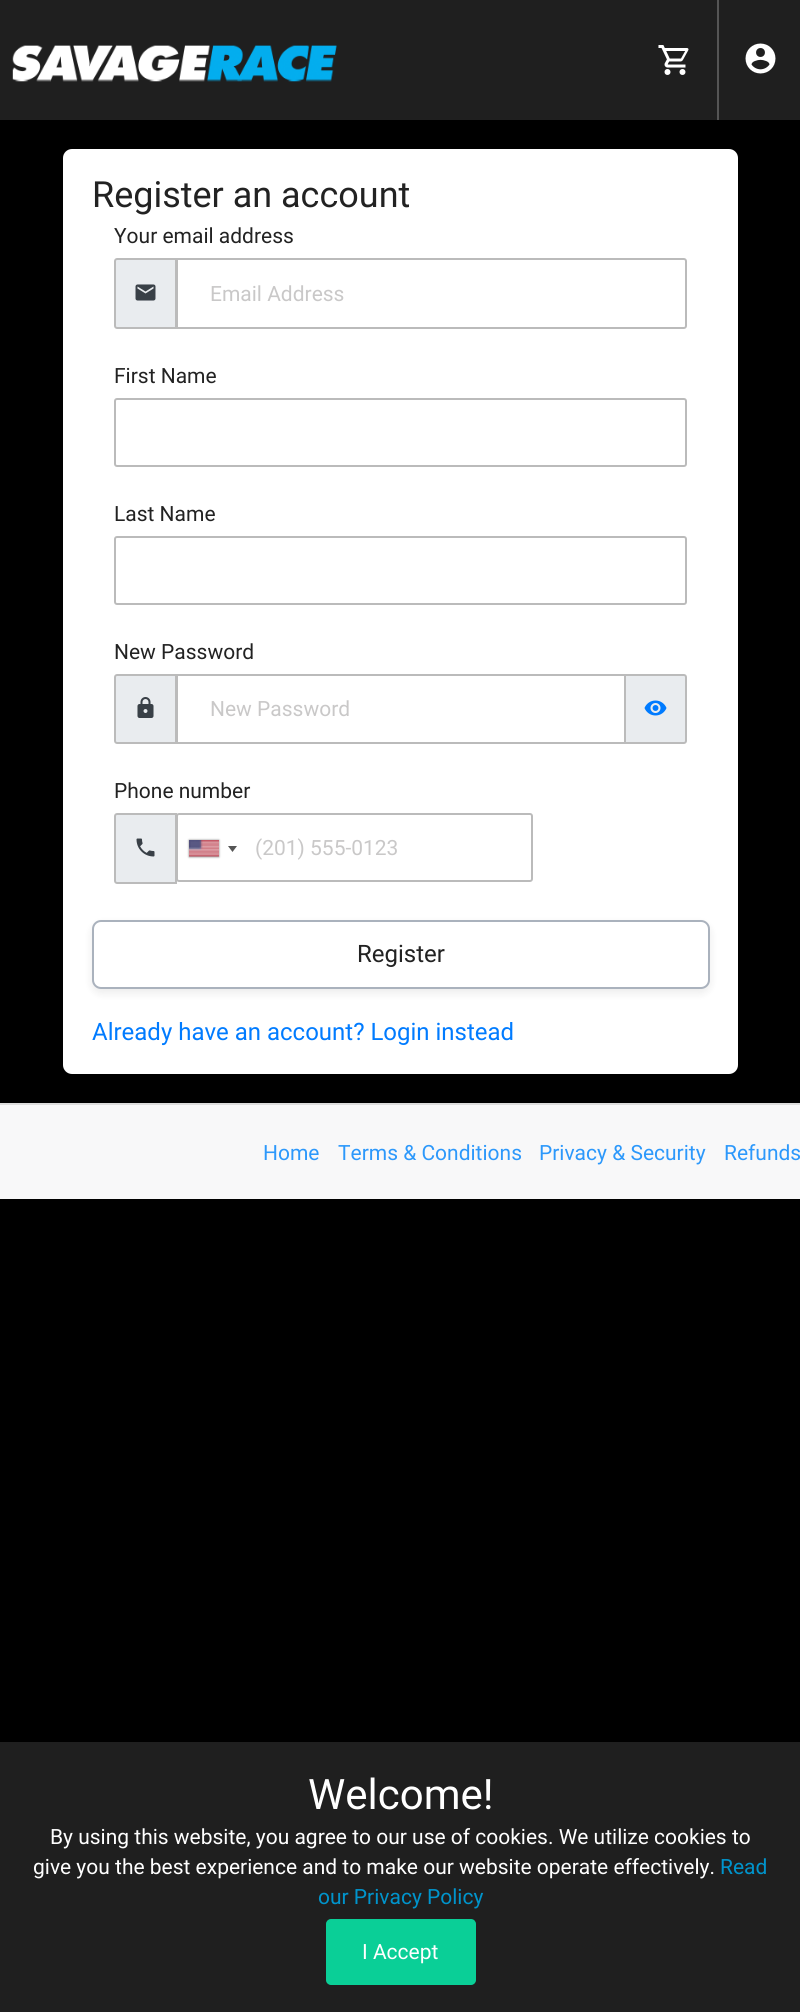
import math
import cairo



def rounded_rect(context, x, y, w, h, r):
    context.new_sub_path()
    for i, (u, v) in enumerate([(x + w - r, y + h - r), (x + r, y + h - r), (x + r, y + r), (x + w - r, y + r)]):
        context.arc(u, v, r, i * math.pi / 2, (i + 1) * math.pi / 2)
    context.close_path()


def draw_shadow(context, x, y, w, h, r, blur, alpha):
    context.push_group_with_content(cairo.Content.ALPHA)
    context.set_operator(cairo.Operator.SOURCE)
    for i in range(15, -16, -2):
        e = blur * i / 6
        if min(w, h) + 2 * e > 0:
            context.set_source_rgba(0, 0, 0, alpha * math.erfc((i - 1) / 8.5) / 2)
            rounded_rect(context, x - e, y - e, w + 2 * e, h + 2 * e, max(0, min(r + e + blur * .6, min(w, h) / 2 + e)))
            context.fill()
    context.mask(context.pop_group())


def draw_image(context, path, x, y, w, h):
    context.save()
    context.set_source_surface(cairo.ImageSurface.create_from_png(path), x, y)
    context.rectangle(x, y, w, h)
    context.fill()
    context.restore()


def draw(context):
    context.set_source_rgb(0, 0, 0)
    context.paint()
    context.set_source_rgb(31 / 255, 31 / 255, 31 / 255)
    context.rectangle(0, 0, 800, 120)
    context.fill()
    draw_image(context, "images/1.png", 12, 45, 325, 37)
    context.set_source_rgb(85 / 255, 85 / 255, 85 / 255)
    context.rectangle(717, 0, 2, 120)
    context.fill()
    draw_image(context, "images/2.png", 658, 45, 31, 30)
    draw_image(context, "images/3.png", 745, 43, 31, 31)
    context.set_source_rgb(1, 1, 1)
    rounded_rect(context, 63, 149, 675, 925, 9)
    context.fill()
    context.set_source_rgb(233 / 255, 236 / 255, 239 / 255)
    context.new_path()
    context.move_to(117, 259)
    context.line_to(176, 259)
    context.line_to(176, 328)
    context.line_to(117, 328)
    context.curve_to(116, 328, 115, 327, 115, 326)
    context.line_to(115, 261)
    context.curve_to(115, 260, 116, 259, 117, 259)
    context.close_path()
    context.fill_preserve()
    context.set_source_rgb(187 / 255, 187 / 255, 187 / 255)
    context.stroke()
    draw_image(context, "images/4.png", 135, 284, 21, 17)
    context.new_path()
    context.move_to(177, 259)
    context.line_to(684, 259)
    context.curve_to(685, 259, 686, 260, 686, 261)
    context.line_to(686, 326)
    context.curve_to(686, 327, 685, 328, 684, 328)
    context.line_to(177, 328)
    context.close_path()
    context.stroke()
    rounded_rect(context, 115, 399, 571, 67, 2)
    context.stroke()
    rounded_rect(context, 115, 537, 571, 67, 2)
    context.stroke()
    context.set_source_rgb(233 / 255, 236 / 255, 239 / 255)
    context.new_path()
    context.move_to(117, 675)
    context.line_to(176, 675)
    context.line_to(176, 743)
    context.line_to(117, 743)
    context.curve_to(116, 743, 115, 742, 115, 741)
    context.line_to(115, 677)
    context.curve_to(115, 676, 116, 675, 117, 675)
    context.close_path()
    context.fill_preserve()
    context.set_source_rgb(187 / 255, 187 / 255, 187 / 255)
    context.stroke()
    draw_image(context, "images/5.png", 137, 697, 17, 21)
    context.set_source_rgb(233 / 255, 236 / 255, 239 / 255)
    context.new_path()
    context.move_to(625, 675)
    context.line_to(684, 675)
    context.curve_to(685, 675, 686, 676, 686, 677)
    context.line_to(686, 741)
    context.curve_to(686, 742, 685, 743, 684, 743)
    context.line_to(625, 743)
    context.close_path()
    context.fill_preserve()
    context.set_source_rgb(187 / 255, 187 / 255, 187 / 255)
    context.stroke()
    context.rectangle(177, 675, 448, 68)
    context.stroke()
    draw_image(context, "images/6.png", 644, 700, 23, 16)
    context.set_source_rgb(233 / 255, 236 / 255, 239 / 255)
    context.new_path()
    context.move_to(117, 814)
    context.line_to(176, 814)
    context.line_to(176, 883)
    context.line_to(117, 883)
    context.curve_to(116, 883, 115, 882, 115, 881)
    context.line_to(115, 816)
    context.curve_to(115, 815, 116, 814, 117, 814)
    context.close_path()
    context.fill_preserve()
    context.set_source_rgb(187 / 255, 187 / 255, 187 / 255)
    context.stroke()
    draw_image(context, "images/7.png", 136, 838, 19, 19)
    rounded_rect(context, 177, 814, 355, 67, 2)
    context.stroke()
    context.set_source_rgb(136 / 255, 136 / 255, 136 / 255)
    draw_shadow(context, 189, 840, 30, 17, 0, 1, 1)
    draw_image(context, "images/8.png", 189, 840, 30, 17)
    context.set_source_rgb(85 / 255, 85 / 255, 85 / 255)
    context.new_path()
    context.move_to(228, 846)
    context.line_to(237, 846)
    context.line_to(232.5, 852)
    context.close_path()
    context.fill()
    context.set_source_rgb(0, 0, 0)
    draw_shadow(context, 92, 924, 618, 69, 9, 4.5, 0.08)
    context.set_source_rgb(1, 1, 1)
    rounded_rect(context, 93, 921, 616, 67, 8)
    context.fill_preserve()
    context.set_source_rgb(170 / 255, 178 / 255, 189 / 255)
    context.stroke()
    context.set_source_rgb(248 / 255, 248 / 255, 249 / 255)
    context.rectangle(0, 1105, 800, 94)
    context.fill()
    context.set_source_rgb(221 / 255, 221 / 255, 221 / 255)
    context.rectangle(0, 1103, 800, 2)
    context.fill()
    context.set_source_rgb(31 / 255, 31 / 255, 31 / 255)
    context.rectangle(0, 1742, 800, 270)
    context.fill()
    context.set_source_rgb(10 / 255, 207 / 255, 151 / 255)
    rounded_rect(context, 327, 1920, 148, 64, 4)
    context.fill_preserve()
    context.stroke()
    context.select_font_face("Roboto")
    context.set_font_size(36)
    context.set_source_rgb(34 / 255, 34 / 255, 34 / 255)
    context.move_to(92, 207)
    context.show_text("Register an account")
    context.set_font_size(21)
    context.move_to(114, 243)
    context.show_text("Your email address")
    context.set_source_rgb(201 / 255, 200 / 255, 200 / 255)
    context.move_to(210, 301)
    context.show_text("Email Address")
    context.set_source_rgb(34 / 255, 34 / 255, 34 / 255)
    context.move_to(114, 383)
    context.show_text("First Name")
    context.move_to(114, 521)
    context.show_text("Last Name")
    context.move_to(114, 659)
    context.show_text("New Password")
    context.set_source_rgb(201 / 255, 200 / 255, 200 / 255)
    context.move_to(210, 716)
    context.show_text("New Password")
    context.set_source_rgb(34 / 255, 34 / 255, 34 / 255)
    context.move_to(114, 798)
    context.show_text("Phone number")
    context.set_source_rgb(201 / 255, 200 / 255, 200 / 255)
    context.move_to(255, 855)
    context.show_text("(201) 555-0123")
    context.set_font_size(24)
    context.set_source_rgb(34 / 255, 34 / 255, 34 / 255)
    context.move_to(357, 962)
    context.show_text("Register")
    context.set_source_rgb(0, 123 / 255, 1)
    context.move_to(92, 1040)
    context.show_text("Already have an account? Login instead")
    context.set_font_size(21)
    context.set_source_rgb(44 / 255, 152 / 255, 251 / 255)
    context.move_to(263, 1160)
    context.show_text("Home")
    context.move_to(338, 1160)
    context.show_text("Terms & Conditions")
    context.move_to(539, 1160)
    context.show_text("Privacy & Security")
    context.move_to(724, 1160)
    context.show_text("Refunds")
    context.set_font_size(42)
    context.set_source_rgb(1, 1, 1)
    context.move_to(308, 1809)
    context.show_text("Welcome!")
    context.set_font_size(21)
    context.move_to(50, 1844)
    context.show_text("By using this website, you agree to our use of cookies. We utilize cookies to")
    context.move_to(33, 1874)
    context.show_text("give you the best experience and to make our website operate effectively.")
    context.set_source_rgb(0, 148 / 255, 204 / 255)
    context.move_to(720, 1874)
    context.show_text("Read")
    context.move_to(318, 1904)
    context.show_text("our Privacy Policy")
    context.set_source_rgb(1, 1, 1)
    context.move_to(362, 1959)
    context.show_text("I Accept")


surface = cairo.ImageSurface(cairo.Format.RGB24, 800, 2012)
context = cairo.Context(surface)
options = cairo.FontOptions()
options.set_hint_metrics(cairo.HintMetrics.OFF)
options.set_hint_style(cairo.HintStyle.NONE)
context.set_font_options(options)
context.set_miter_limit(4)
draw(context)
surface.write_to_png("out.png")
